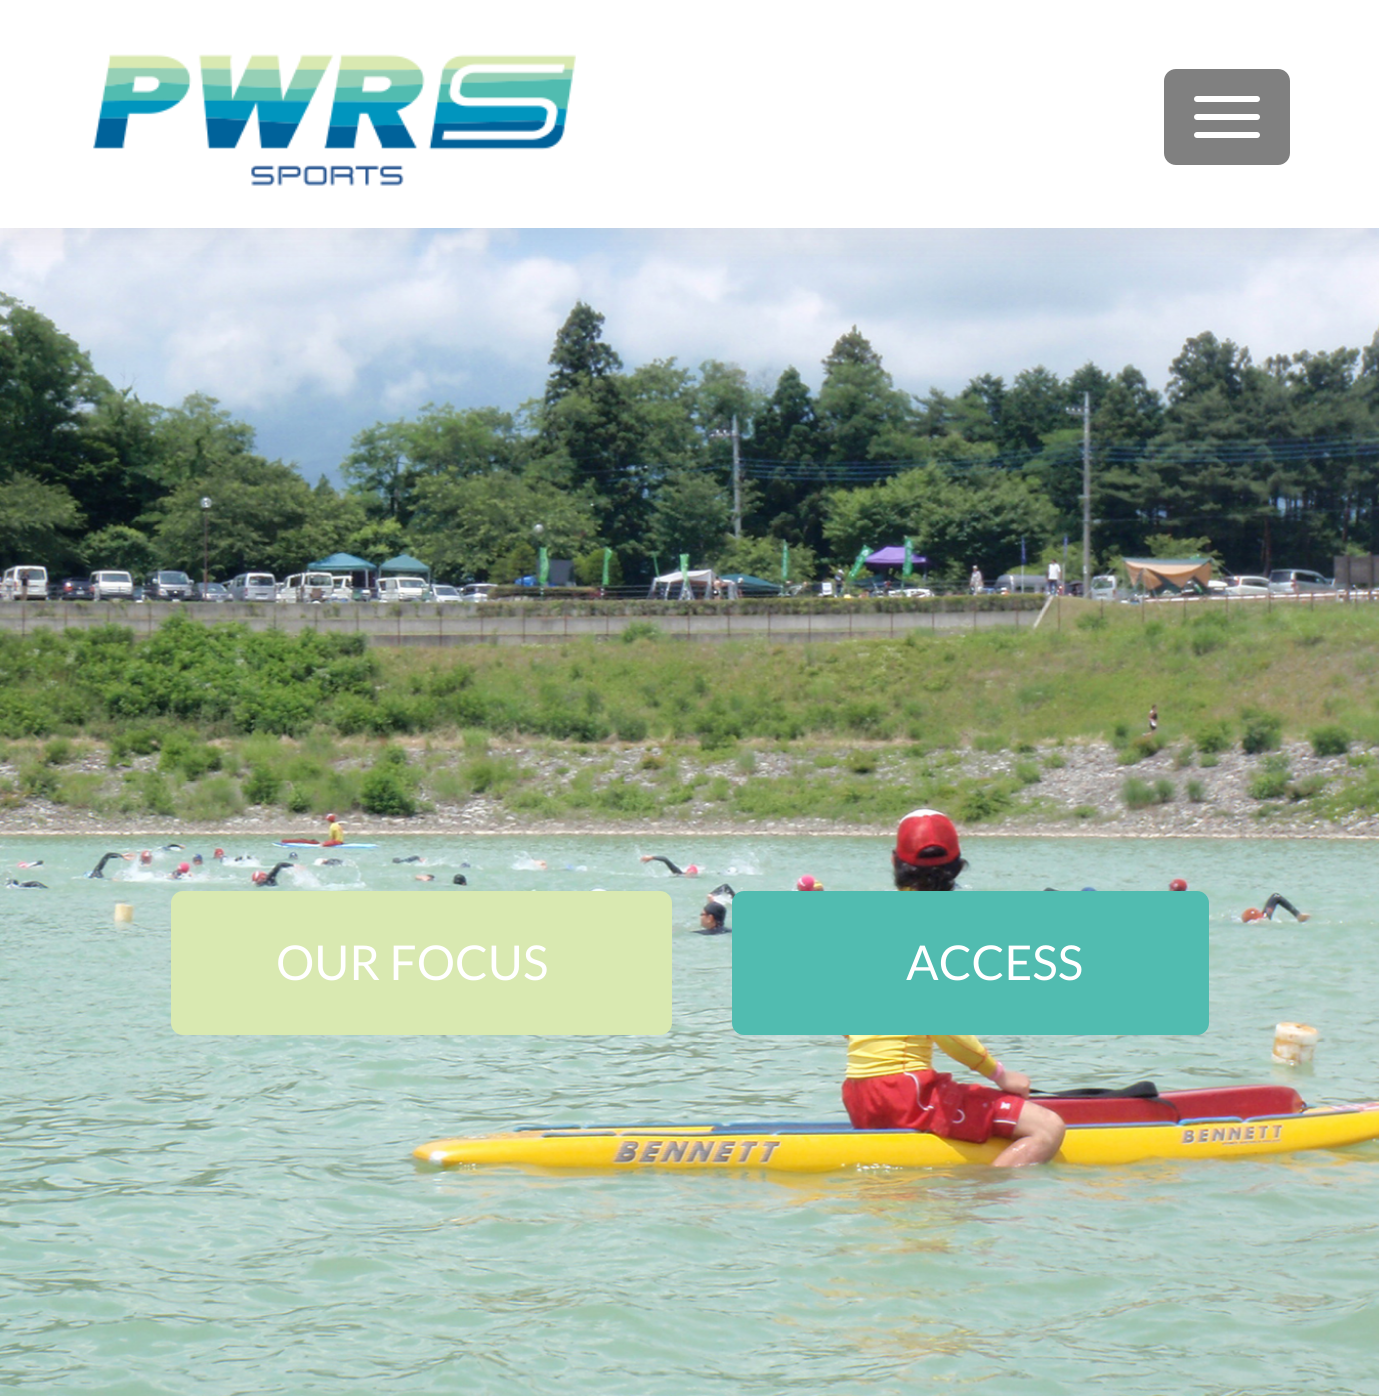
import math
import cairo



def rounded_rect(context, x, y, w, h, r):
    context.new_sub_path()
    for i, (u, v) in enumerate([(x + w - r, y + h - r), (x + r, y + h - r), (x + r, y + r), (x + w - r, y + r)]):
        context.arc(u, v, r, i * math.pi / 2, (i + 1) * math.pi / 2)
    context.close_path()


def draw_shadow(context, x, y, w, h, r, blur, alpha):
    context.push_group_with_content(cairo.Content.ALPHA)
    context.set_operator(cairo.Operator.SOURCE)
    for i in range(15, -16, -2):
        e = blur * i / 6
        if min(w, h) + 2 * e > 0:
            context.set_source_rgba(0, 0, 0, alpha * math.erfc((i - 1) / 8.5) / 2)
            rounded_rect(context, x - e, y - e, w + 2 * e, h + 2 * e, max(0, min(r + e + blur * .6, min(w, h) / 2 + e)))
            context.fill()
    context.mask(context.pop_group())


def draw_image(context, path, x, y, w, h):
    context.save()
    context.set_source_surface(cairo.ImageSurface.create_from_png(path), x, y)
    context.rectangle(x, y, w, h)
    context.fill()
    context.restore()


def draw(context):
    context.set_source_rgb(1, 1, 1)
    context.paint()
    draw_image(context, "images/1.png", 0, 228, 1379, 1168)
    context.set_source_rgb(50 / 255, 50 / 255, 50 / 255)
    draw_shadow(context, 0, 15, 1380, 228, 0, 16.5, 0.08)
    context.set_source_rgb(1, 1, 1)
    context.rectangle(0, 0, 1379, 228)
    context.fill()
    draw_image(context, "images/2.png", 93, 54, 483, 132)
    context.set_source_rgb(128 / 255, 128 / 255, 128 / 255)
    rounded_rect(context, 1164, 69, 126, 96, 12)
    context.fill()
    context.set_source_rgb(1, 1, 1)
    rounded_rect(context, 1194, 96, 66, 6, 3)
    context.fill()
    rounded_rect(context, 1194, 114, 66, 6, 3)
    context.fill()
    rounded_rect(context, 1194, 132, 66, 6, 3)
    context.fill()
    context.set_source_rgb(217 / 255, 233 / 255, 177 / 255)
    rounded_rect(context, 171, 891, 501, 144, 12)
    context.fill()
    context.set_source_rgb(81 / 255, 188 / 255, 176 / 255)
    rounded_rect(context, 732, 891, 477, 144, 12)
    context.fill()
    context.select_font_face("Lato")
    context.set_font_size(48)
    context.set_source_rgb(1, 1, 1)
    context.move_to(276, 980)
    context.show_text("OUR FOCUS")
    context.move_to(906, 980)
    context.show_text("ACCESS")


surface = cairo.ImageSurface(cairo.Format.RGB24, 1379, 1396)
context = cairo.Context(surface)
options = cairo.FontOptions()
options.set_hint_metrics(cairo.HintMetrics.OFF)
options.set_hint_style(cairo.HintStyle.NONE)
context.set_font_options(options)
context.set_miter_limit(4)
draw(context)
surface.write_to_png("out.png")
